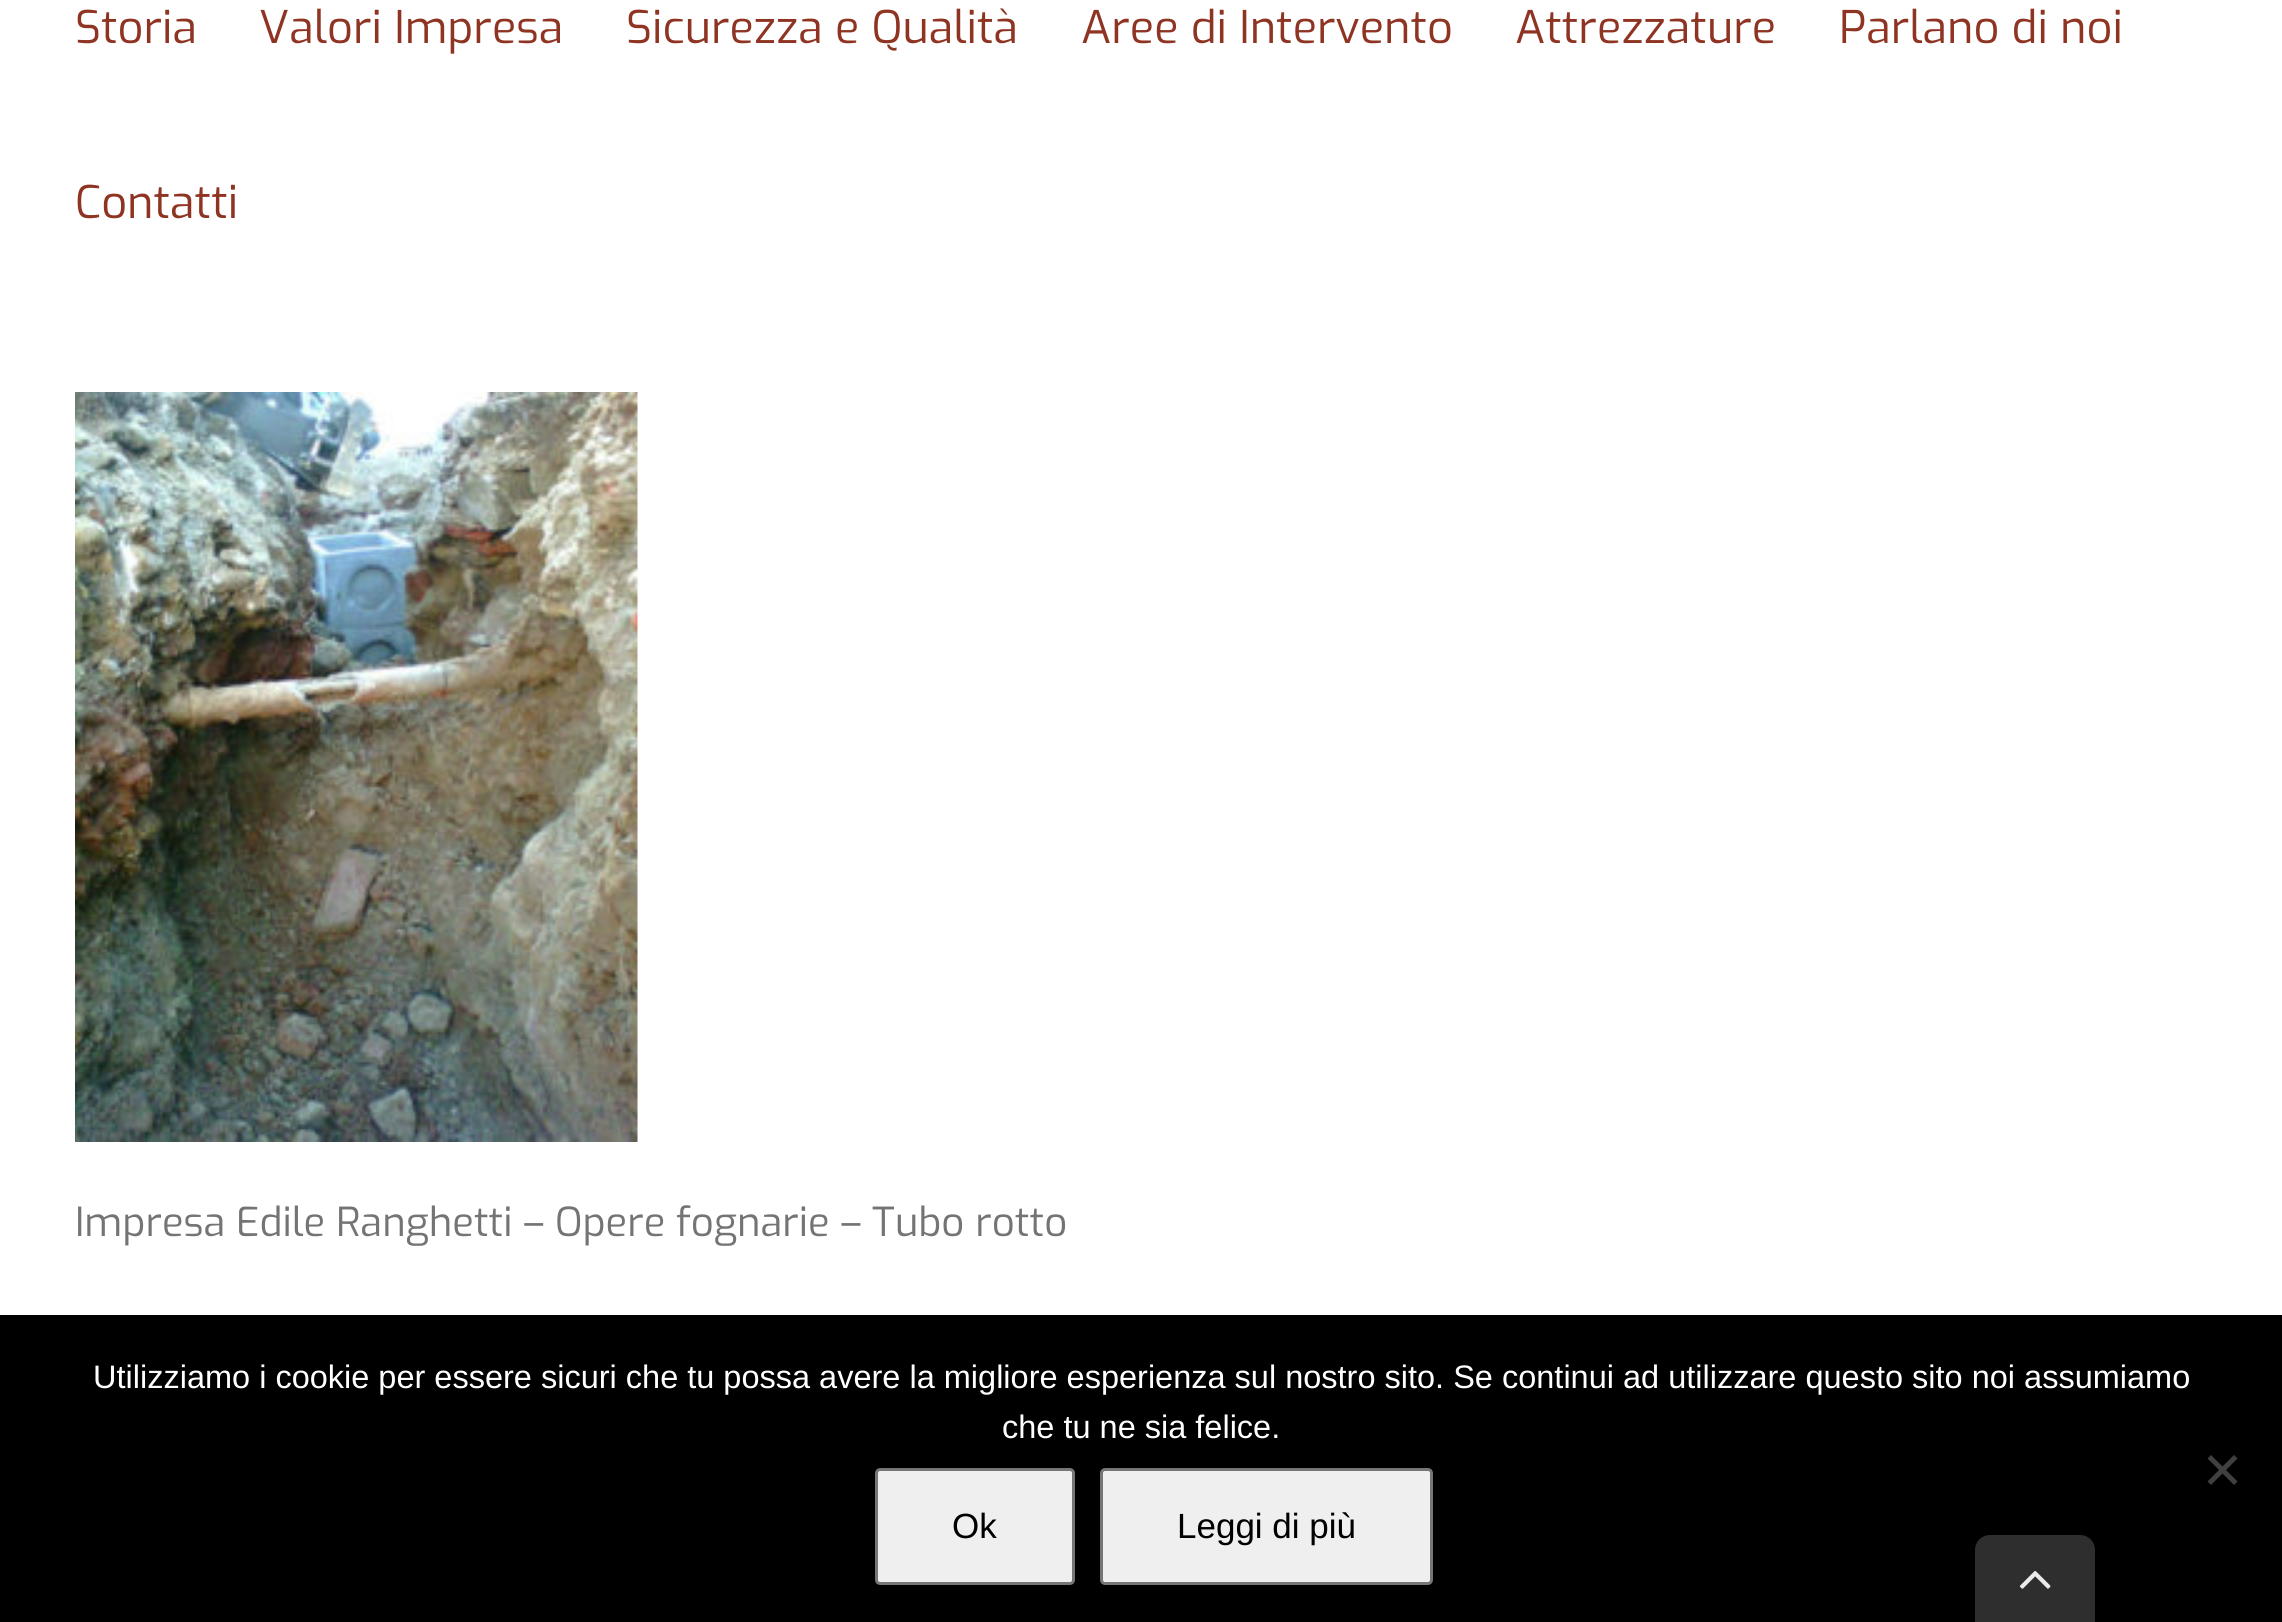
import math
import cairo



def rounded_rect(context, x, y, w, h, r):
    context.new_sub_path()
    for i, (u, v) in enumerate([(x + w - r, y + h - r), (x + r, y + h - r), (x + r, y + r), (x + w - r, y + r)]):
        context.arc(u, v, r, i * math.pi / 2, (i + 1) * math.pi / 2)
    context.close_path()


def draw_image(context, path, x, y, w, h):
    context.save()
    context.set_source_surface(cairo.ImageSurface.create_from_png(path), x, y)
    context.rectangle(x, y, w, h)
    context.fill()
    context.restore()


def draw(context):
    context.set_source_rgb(1, 1, 1)
    context.paint()
    draw_image(context, "images/1.png", 75, 392, 563, 750)
    context.set_source_rgb(0, 0, 0)
    context.rectangle(0, 1315, 2282, 307)
    context.fill()
    context.set_source_rgb(64 / 255, 64 / 255, 64 / 255)
    context.new_path()
    context.move_to(2234, 1455)
    context.line_to(2237.5, 1458.5)
    context.line_to(2211, 1485)
    context.line_to(2207.5, 1481.5)
    context.close_path()
    context.fill()
    context.new_path()
    context.move_to(2207.5, 1458.5)
    context.line_to(2211, 1455)
    context.line_to(2237.5, 1481.5)
    context.line_to(2234, 1485)
    context.close_path()
    context.fill()
    context.set_source_rgb(239 / 255, 239 / 255, 239 / 255)
    rounded_rect(context, 876.5, 1469.5, 197, 114, 3.5)
    context.fill_preserve()
    context.set_source_rgb(118 / 255, 118 / 255, 118 / 255)
    context.set_line_width(3)
    context.stroke()
    context.set_source_rgb(239 / 255, 239 / 255, 239 / 255)
    rounded_rect(context, 1101.5, 1469.5, 330, 114, 3.5)
    context.fill_preserve()
    context.set_source_rgb(118 / 255, 118 / 255, 118 / 255)
    context.stroke()
    context.set_source_rgb(46 / 255, 46 / 255, 46 / 255)
    context.new_path()
    context.move_to(1990, 1535)
    context.line_to(2080, 1535)
    context.curve_to(2088.5, 1535, 2095, 1541.5, 2095, 1550)
    context.line_to(2095, 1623)
    context.line_to(1975, 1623)
    context.line_to(1975, 1550)
    context.curve_to(1975, 1541.5, 1981.5, 1535, 1990, 1535)
    context.close_path()
    context.fill()
    draw_image(context, "images/2.png", 2019, 1570, 32, 19)
    context.select_font_face("Exo")
    context.set_font_size(45)
    context.set_source_rgb(143 / 255, 52 / 255, 34 / 255)
    context.move_to(75, 43)
    context.show_text("Storia")
    context.move_to(259, 43)
    context.show_text("Valori Impresa")
    context.move_to(626, 43)
    context.show_text("Sicurezza e Qualità")
    context.move_to(1081, 43)
    context.show_text("Aree di Intervento")
    context.move_to(1515, 43)
    context.show_text("Attrezzature")
    context.move_to(1839, 43)
    context.show_text("Parlano di noi")
    context.move_to(75, 218)
    context.show_text("Contatti")
    context.set_font_size(40)
    context.set_source_rgb(116 / 255, 116 / 255, 116 / 255)
    context.move_to(75, 1236)
    context.show_text("Impresa Edile Ranghetti – Opere fognarie – Tubo rotto")
    context.select_font_face("Liberation Sans")
    context.set_font_size(32.5)
    context.set_source_rgb(1, 1, 1)
    context.move_to(93, 1388)
    context.show_text("Utilizziamo i cookie per essere sicuri che tu possa avere la migliore esperienza sul nostro sito. Se continui ad utilizzare questo sito noi assumiamo")
    context.move_to(1002, 1438)
    context.show_text("che tu ne sia felice.")
    context.set_font_size(35)
    context.set_source_rgb(0, 0, 0)
    context.move_to(952, 1538)
    context.show_text("Ok")
    context.move_to(1177, 1538)
    context.show_text("Leggi di più")


surface = cairo.ImageSurface(cairo.Format.RGB24, 2282, 1622)
context = cairo.Context(surface)
options = cairo.FontOptions()
options.set_hint_metrics(cairo.HintMetrics.OFF)
options.set_hint_style(cairo.HintStyle.NONE)
context.set_font_options(options)
context.set_miter_limit(4)
draw(context)
surface.write_to_png("out.png")
